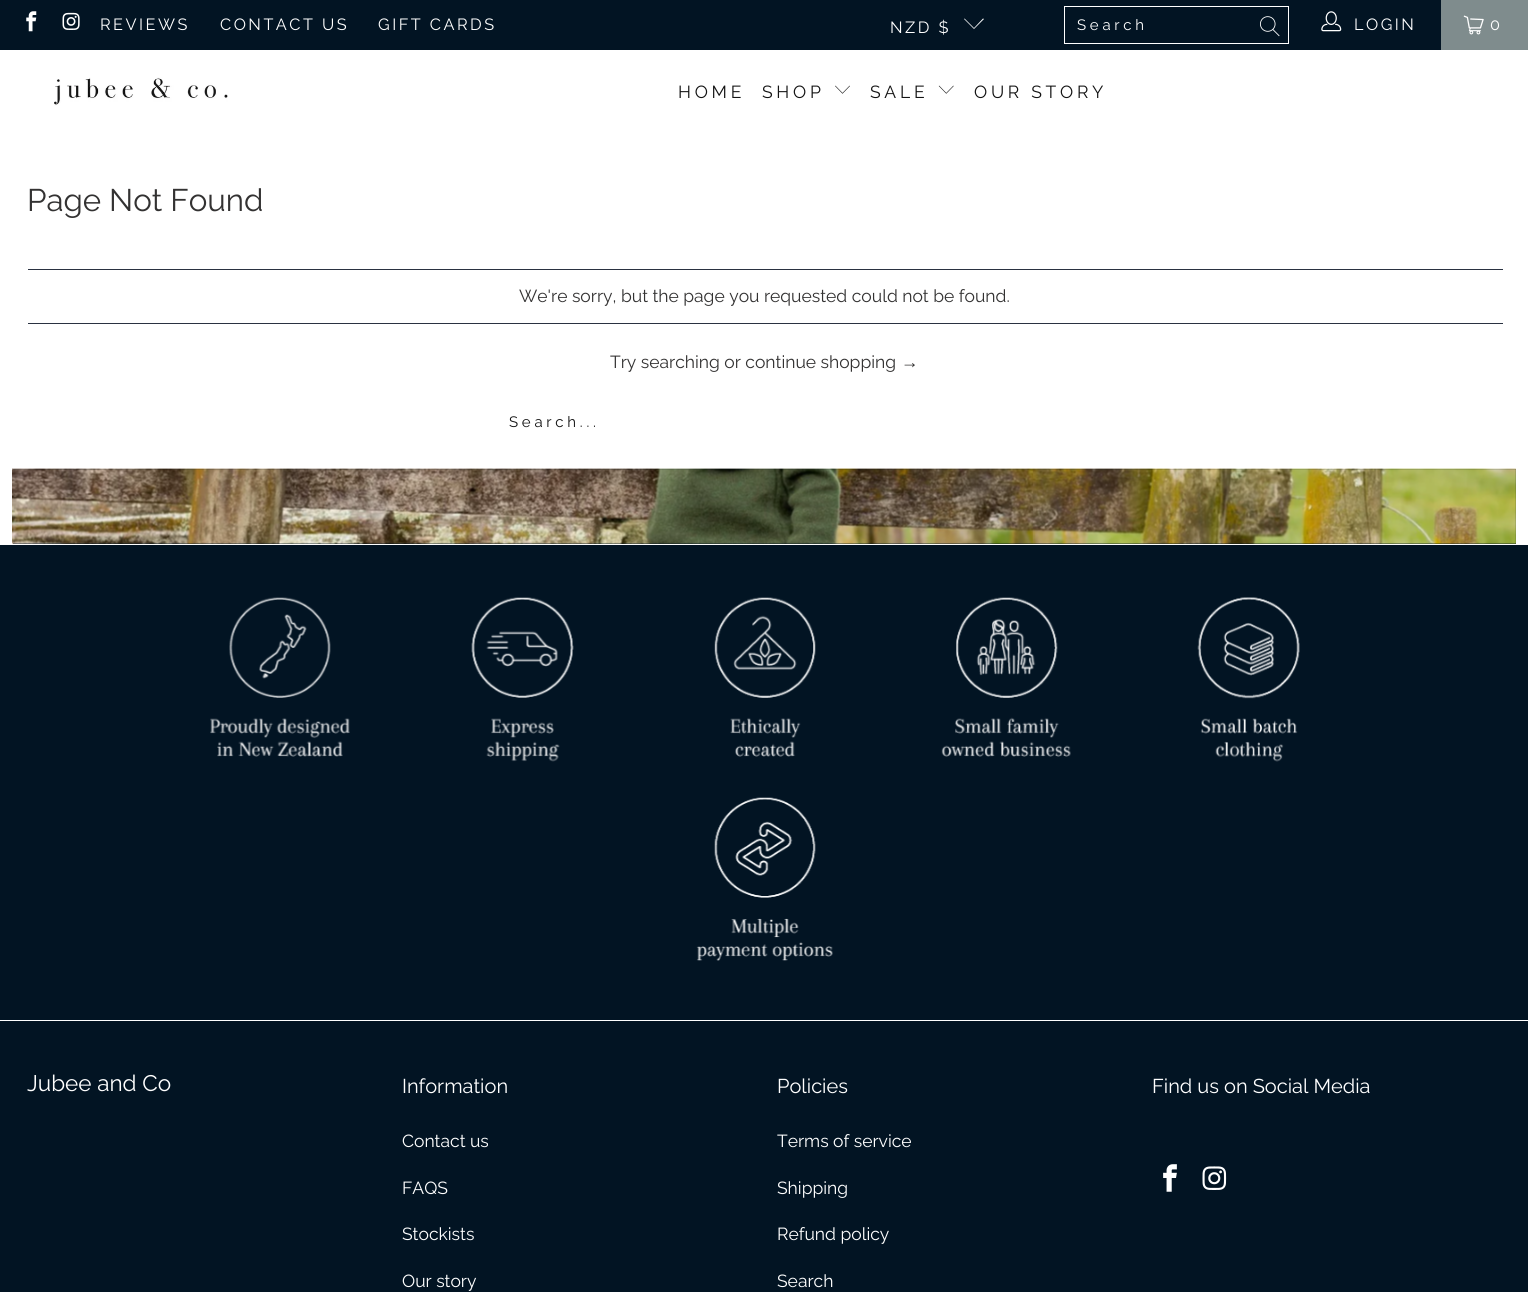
import math
import cairo



def draw_spaced(context, x, y, s, letter, word):
    context.move_to(x, y)
    for ch in s:
        context.show_text(ch)
        context.rel_move_to(letter + word * (ch == ' '), 0)


def draw_image(context, path, x, y, w, h):
    context.save()
    context.set_source_surface(cairo.ImageSurface.create_from_png(path), x, y)
    context.rectangle(x, y, w, h)
    context.fill()
    context.restore()


def draw(context):
    context.set_source_rgb(1, 1, 1)
    context.paint()
    context.set_source_rgb(2 / 255, 20 / 255, 35 / 255)
    context.rectangle(0, 0, 1441, 50)
    context.fill()
    draw_image(context, "images/1.png", 26, 11, 11, 21)
    draw_image(context, "images/2.png", 62, 12, 18, 18)
    context.set_source_rgb(1, 1, 1)
    context.new_path()
    context.move_to(974, 29)
    context.line_to(964, 19)
    context.line_to(964.5, 18.5)
    context.line_to(974, 28)
    context.line_to(983, 18.5)
    context.line_to(984, 19)
    context.close_path()
    context.fill()
    context.rectangle(1064.5, 6.5, 224, 37)
    context.set_line_width(1)
    context.stroke()
    draw_image(context, "images/3.png", 1260, 16, 20, 21)
    draw_image(context, "images/4.png", 1321, 11, 21, 21)
    context.set_source_rgb(127 / 255, 140 / 255, 141 / 255)
    context.rectangle(1441, 0, 87, 50)
    context.fill()
    draw_image(context, "images/5.png", 1463, 15, 21, 20)
    draw_image(context, "images/6.png", 54, 77, 174, 29)
    draw_image(context, "images/7.png", 835, 85, 15, 9)
    draw_image(context, "images/8.png", 938, 85, 16, 9)
    context.set_source_rgb(42 / 255, 50 / 255, 65 / 255)
    context.rectangle(28, 269, 1475, 1)
    context.fill()
    context.rectangle(28, 323, 1475, 1)
    context.fill()
    context.set_source_rgb(2 / 255, 20 / 255, 35 / 255)
    context.rectangle(13, 469, 1503, 75)
    context.fill()
    draw_image(context, "images/9.png", 12, 468, 1504, 76)
    context.rectangle(0, 545, 1528, 475)
    context.fill()
    draw_image(context, "images/10.png", 210, 597, 140, 160)
    draw_image(context, "images/11.png", 471, 597, 103, 165)
    draw_image(context, "images/12.png", 714, 597, 102, 160)
    draw_image(context, "images/13.png", 941, 597, 130, 160)
    draw_image(context, "images/14.png", 1197, 597, 103, 165)
    draw_image(context, "images/15.png", 696, 797, 137, 164)
    context.rectangle(0, 1021, 1528, 271)
    context.fill()
    draw_image(context, "images/16.png", 1163, 1164, 14, 28)
    draw_image(context, "images/17.png", 1202, 1166, 25, 24)
    context.select_font_face("Raleway Thin")
    context.set_font_size(16.25)
    context.set_source_rgb(1, 1, 1)
    draw_spaced(context, 100, 30, "REVIEWS", 2.5, 0)
    draw_spaced(context, 220, 30, "CONTACT US", 2.5, 0)
    draw_spaced(context, 378, 30, "GIFT CARDS", 2.5, 0)
    draw_spaced(context, 890, 33, "NZD $", 2.5, 0)
    context.set_font_size(15)
    draw_spaced(context, 1077, 30, "Search", 3.75, 0)
    context.set_font_size(16.25)
    draw_spaced(context, 1354, 30, "LOGIN", 2.5, 0)
    draw_spaced(context, 1490, 30, "0", 2.5, 0)
    context.set_font_size(17.5)
    context.set_source_rgb(19 / 255, 19 / 255, 19 / 255)
    draw_spaced(context, 678, 98, "HOME", 3.75, 0)
    draw_spaced(context, 762, 98, "SHOP", 3.75, 0)
    draw_spaced(context, 870, 98, "SALE", 3.75, 0)
    draw_spaced(context, 974, 98, "OUR STORY", 3.75, 0)
    context.set_font_size(31.25)
    context.set_source_rgb(51 / 255, 50 / 255, 50 / 255)
    context.move_to(27, 211)
    context.show_text("Page Not Found")
    context.set_font_size(17.5)
    context.move_to(519, 302)
    context.show_text("We're sorry, but the page you requested could not be found.")
    context.move_to(610, 368)
    context.show_text("Try searching or continue shopping")
    context.select_font_face("Liberation Sans")
    context.move_to(901, 368)
    context.show_text("→")
    context.select_font_face("Raleway Thin")
    context.set_font_size(15)
    context.set_source_rgb(19 / 255, 19 / 255, 19 / 255)
    draw_spaced(context, 509, 427, "Search...", 3.75, 0)
    context.set_font_size(22.5)
    context.set_source_rgb(1, 1, 1)
    context.move_to(27, 1091)
    context.show_text("Jubee and Co")
    context.set_font_size(20)
    context.move_to(402, 1093)
    context.show_text("Information")
    context.set_font_size(17.5)
    context.move_to(402, 1147)
    context.show_text("Contact us")
    context.move_to(402, 1194)
    context.show_text("FAQS")
    context.move_to(402, 1240)
    context.show_text("Stockists")
    context.move_to(402, 1287)
    context.show_text("Our story")
    context.set_font_size(20)
    context.move_to(777, 1093)
    context.show_text("Policies")
    context.set_font_size(17.5)
    context.move_to(777, 1147)
    context.show_text("Terms of service")
    context.move_to(777, 1194)
    context.show_text("Shipping")
    context.move_to(777, 1240)
    context.show_text("Refund policy")
    context.move_to(777, 1287)
    context.show_text("Search")
    context.set_font_size(20)
    context.move_to(1152, 1093)
    context.show_text("Find us on Social Media")


surface = cairo.ImageSurface(cairo.Format.RGB24, 1528, 1292)
context = cairo.Context(surface)
options = cairo.FontOptions()
options.set_hint_metrics(cairo.HintMetrics.OFF)
options.set_hint_style(cairo.HintStyle.NONE)
context.set_font_options(options)
context.set_miter_limit(4)
draw(context)
surface.write_to_png("out.png")
